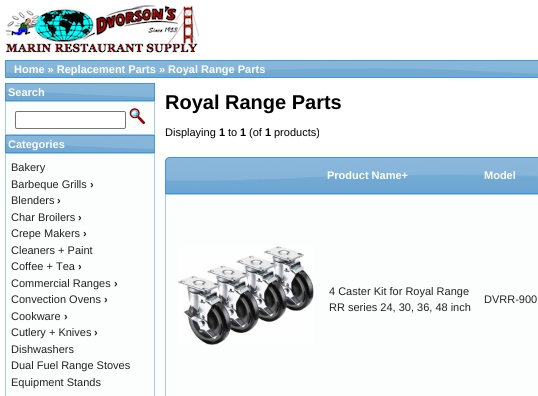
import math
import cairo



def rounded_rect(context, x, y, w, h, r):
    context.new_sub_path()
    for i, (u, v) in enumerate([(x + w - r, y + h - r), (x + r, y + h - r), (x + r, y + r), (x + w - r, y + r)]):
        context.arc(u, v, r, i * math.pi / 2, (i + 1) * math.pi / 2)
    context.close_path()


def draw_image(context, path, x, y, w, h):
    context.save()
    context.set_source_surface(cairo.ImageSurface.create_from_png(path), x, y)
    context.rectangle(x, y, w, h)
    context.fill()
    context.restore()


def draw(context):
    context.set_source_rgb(1, 1, 1)
    context.paint()
    draw_image(context, "images/1.png", 5, 5, 194, 50)
    draw_image(context, "images/2.png", 6, 61, 532, 16)
    context.rectangle(5.5, 60.5, 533, 17)
    context.set_source_rgb(66 / 255, 151 / 255, 215 / 255)
    context.set_line_width(1)
    context.stroke()
    draw_image(context, "images/3.png", 6, 84, 148, 16)
    context.rectangle(5.5, 83.5, 149, 17)
    context.stroke()
    context.set_source_rgb(252 / 255, 253 / 255, 253 / 255)
    context.rectangle(5.5, 101.5, 149, 33)
    context.fill_preserve()
    context.set_source_rgb(166 / 255, 201 / 255, 226 / 255)
    context.stroke()
    context.set_source_rgb(1, 1, 1)
    rounded_rect(context, 15.5, 111.5, 110, 17, 1.5)
    context.fill_preserve()
    context.set_source_rgb(118 / 255, 118 / 255, 118 / 255)
    context.stroke()
    draw_image(context, "images/4.png", 129, 108, 16, 16)
    draw_image(context, "images/3.png", 6, 136, 148, 16)
    context.rectangle(5.5, 135.5, 149, 17)
    context.set_source_rgb(66 / 255, 151 / 255, 215 / 255)
    context.stroke()
    context.set_source_rgb(252 / 255, 253 / 255, 253 / 255)
    context.rectangle(5.5, 153.5, 149, 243)
    context.fill_preserve()
    context.set_source_rgb(166 / 255, 201 / 255, 226 / 255)
    context.stroke()
    draw_image(context, "images/5.png", 165, 157, 373, 36)
    context.new_path()
    context.move_to(170, 157.5)
    context.line_to(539, 157.5)
    context.curve_to(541.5, 157.5, 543.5, 159.5, 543.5, 162)
    context.line_to(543.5, 193.5)
    context.line_to(165.5, 193.5)
    context.line_to(165.5, 162)
    context.curve_to(165.5, 159.5, 167.5, 157.5, 170, 157.5)
    context.close_path()
    context.set_source_rgb(66 / 255, 151 / 255, 215 / 255)
    context.stroke()
    context.set_source_rgb(252 / 255, 253 / 255, 253 / 255)
    context.rectangle(165.5, 194.5, 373, 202)
    context.fill_preserve()
    context.set_source_rgb(166 / 255, 201 / 255, 226 / 255)
    context.stroke()
    draw_image(context, "images/6.png", 178, 246, 136, 99)
    context.select_font_face("Liberation Sans", cairo.FontSlant.NORMAL, cairo.FontWeight.BOLD)
    context.set_font_size(11)
    context.set_source_rgb(1, 1, 1)
    context.move_to(14, 73)
    context.show_text("Home » Replacement Parts » Royal Range Parts")
    context.move_to(8, 96)
    context.show_text("Search")
    context.move_to(8, 148)
    context.show_text("Categories")
    context.select_font_face("Liberation Sans")
    context.set_source_rgb(34 / 255, 34 / 255, 34 / 255)
    context.move_to(11, 171)
    context.show_text("Bakery")
    context.move_to(11, 188)
    context.show_text("Barbeque Grills")
    context.select_font_face("Liberation Sans", cairo.FontSlant.NORMAL, cairo.FontWeight.BOLD)
    context.move_to(90, 188)
    context.show_text("›")
    context.select_font_face("Liberation Sans")
    context.move_to(11, 204)
    context.show_text("Blenders")
    context.select_font_face("Liberation Sans", cairo.FontSlant.NORMAL, cairo.FontWeight.BOLD)
    context.move_to(57, 204)
    context.show_text("›")
    context.select_font_face("Liberation Sans")
    context.move_to(11, 221)
    context.show_text("Char Broilers")
    context.select_font_face("Liberation Sans", cairo.FontSlant.NORMAL, cairo.FontWeight.BOLD)
    context.move_to(78, 221)
    context.show_text("›")
    context.select_font_face("Liberation Sans")
    context.move_to(11, 237)
    context.show_text("Crepe Makers")
    context.select_font_face("Liberation Sans", cairo.FontSlant.NORMAL, cairo.FontWeight.BOLD)
    context.move_to(83, 237)
    context.show_text("›")
    context.select_font_face("Liberation Sans")
    context.move_to(11, 254)
    context.show_text("Cleaners + Paint")
    context.move_to(11, 270)
    context.show_text("Coffee + Tea")
    context.select_font_face("Liberation Sans", cairo.FontSlant.NORMAL, cairo.FontWeight.BOLD)
    context.move_to(78, 270)
    context.show_text("›")
    context.select_font_face("Liberation Sans")
    context.move_to(11, 287)
    context.show_text("Commercial Ranges")
    context.select_font_face("Liberation Sans", cairo.FontSlant.NORMAL, cairo.FontWeight.BOLD)
    context.move_to(114, 287)
    context.show_text("›")
    context.select_font_face("Liberation Sans")
    context.move_to(11, 303)
    context.show_text("Convection Ovens")
    context.select_font_face("Liberation Sans", cairo.FontSlant.NORMAL, cairo.FontWeight.BOLD)
    context.move_to(104, 303)
    context.show_text("›")
    context.select_font_face("Liberation Sans")
    context.move_to(11, 320)
    context.show_text("Cookware")
    context.select_font_face("Liberation Sans", cairo.FontSlant.NORMAL, cairo.FontWeight.BOLD)
    context.move_to(64, 320)
    context.show_text("›")
    context.select_font_face("Liberation Sans")
    context.move_to(11, 336)
    context.show_text("Cutlery + Knives")
    context.select_font_face("Liberation Sans", cairo.FontSlant.NORMAL, cairo.FontWeight.BOLD)
    context.move_to(94, 336)
    context.show_text("›")
    context.select_font_face("Liberation Sans")
    context.move_to(11, 353)
    context.show_text("Dishwashers")
    context.move_to(11, 369)
    context.show_text("Dual Fuel Range Stoves")
    context.move_to(11, 386)
    context.show_text("Equipment Stands")
    context.select_font_face("Liberation Sans", cairo.FontSlant.NORMAL, cairo.FontWeight.BOLD)
    context.set_font_size(20)
    context.set_source_rgb(0, 0, 0)
    context.move_to(165, 109)
    context.show_text("Royal Range Parts")
    context.select_font_face("Liberation Sans")
    context.set_font_size(11)
    context.move_to(165, 136)
    context.show_text("Displaying")
    context.select_font_face("Liberation Sans", cairo.FontSlant.NORMAL, cairo.FontWeight.BOLD)
    context.move_to(219, 136)
    context.show_text("1")
    context.select_font_face("Liberation Sans")
    context.move_to(228, 136)
    context.show_text("to")
    context.select_font_face("Liberation Sans", cairo.FontSlant.NORMAL, cairo.FontWeight.BOLD)
    context.move_to(240, 136)
    context.show_text("1")
    context.select_font_face("Liberation Sans")
    context.move_to(249, 136)
    context.show_text("(of")
    context.select_font_face("Liberation Sans", cairo.FontSlant.NORMAL, cairo.FontWeight.BOLD)
    context.move_to(265, 136)
    context.show_text("1")
    context.select_font_face("Liberation Sans")
    context.move_to(274, 136)
    context.show_text("products)")
    context.select_font_face("Liberation Sans", cairo.FontSlant.NORMAL, cairo.FontWeight.BOLD)
    context.set_source_rgb(1, 1, 1)
    context.move_to(327, 179)
    context.show_text("Product Name+")
    context.move_to(484, 179)
    context.show_text("Model")
    context.select_font_face("Liberation Sans")
    context.set_source_rgb(34 / 255, 34 / 255, 34 / 255)
    context.move_to(329, 295)
    context.show_text("4 Caster Kit for Royal Range")
    context.move_to(329, 311)
    context.show_text("RR series 24, 30, 36, 48 inch")
    context.move_to(484, 303)
    context.show_text("DVRR-900")


surface = cairo.ImageSurface(cairo.Format.RGB24, 538, 396)
context = cairo.Context(surface)
options = cairo.FontOptions()
options.set_hint_metrics(cairo.HintMetrics.OFF)
options.set_hint_style(cairo.HintStyle.NONE)
context.set_font_options(options)
context.set_miter_limit(4)
draw(context)
surface.write_to_png("out.png")
